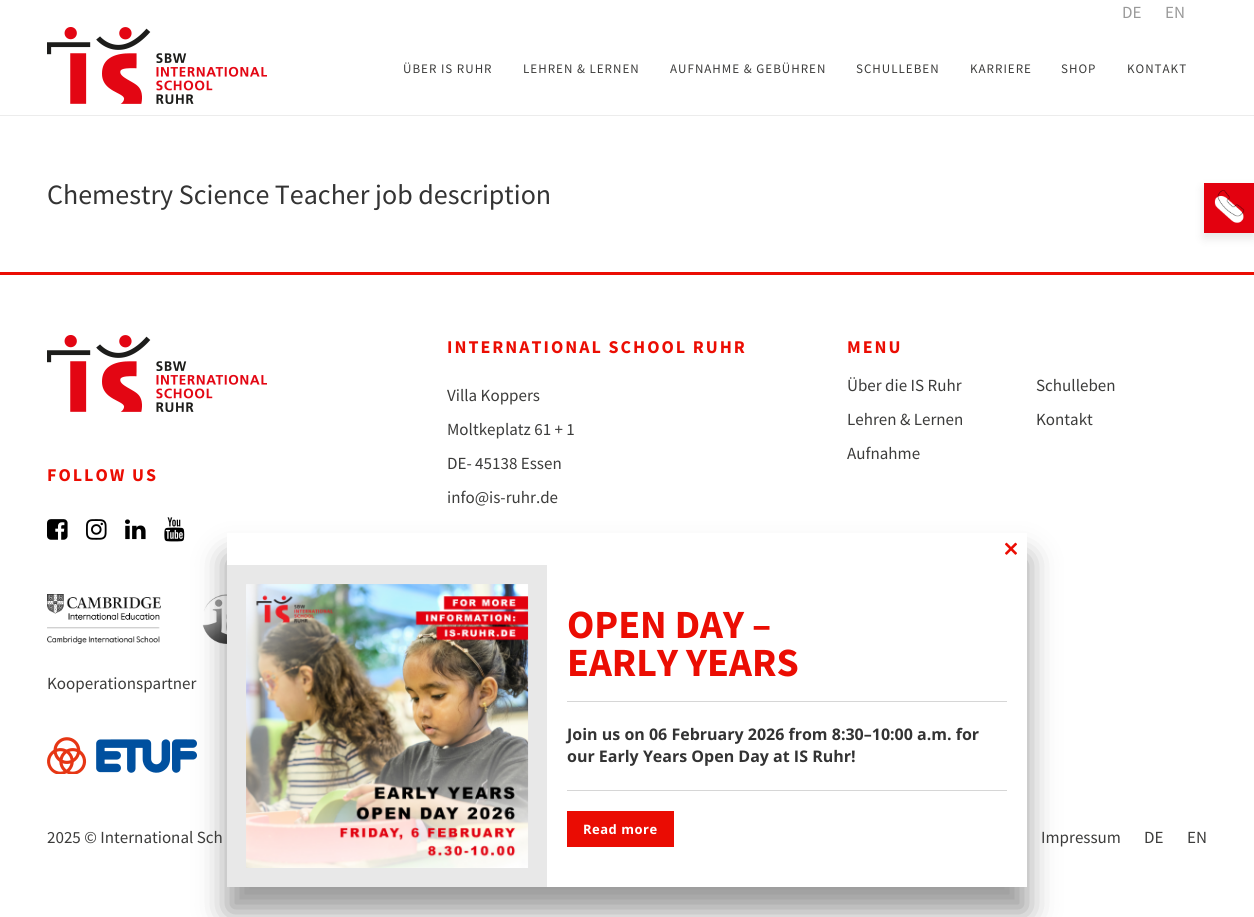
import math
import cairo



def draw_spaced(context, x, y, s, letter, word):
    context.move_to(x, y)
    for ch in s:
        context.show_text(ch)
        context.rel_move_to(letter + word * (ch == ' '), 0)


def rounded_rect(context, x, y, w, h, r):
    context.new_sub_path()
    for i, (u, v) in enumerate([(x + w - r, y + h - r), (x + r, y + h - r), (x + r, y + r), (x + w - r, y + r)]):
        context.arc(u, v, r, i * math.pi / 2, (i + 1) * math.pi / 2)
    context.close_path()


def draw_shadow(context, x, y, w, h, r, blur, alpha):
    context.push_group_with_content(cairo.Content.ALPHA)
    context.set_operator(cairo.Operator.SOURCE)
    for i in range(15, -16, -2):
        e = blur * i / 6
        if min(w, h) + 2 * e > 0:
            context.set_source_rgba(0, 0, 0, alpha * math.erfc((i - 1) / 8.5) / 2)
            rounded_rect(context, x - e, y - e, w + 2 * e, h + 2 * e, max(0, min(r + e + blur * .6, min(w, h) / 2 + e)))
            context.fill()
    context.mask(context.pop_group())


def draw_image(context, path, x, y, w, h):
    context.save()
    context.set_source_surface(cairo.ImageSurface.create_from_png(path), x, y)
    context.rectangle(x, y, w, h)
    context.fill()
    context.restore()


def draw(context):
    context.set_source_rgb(1, 1, 1)
    context.paint()
    context.set_source_rgb(236 / 255, 236 / 255, 236 / 255)
    context.rectangle(0, 115, 1254, 1)
    context.fill()
    draw_image(context, "images/1.png", 47, 27, 220, 77)
    context.set_source_rgb(0, 0, 0)
    draw_shadow(context, 1204, 188, 50, 50, 0, 5, 0.1)
    context.set_source_rgb(227 / 255, 1 / 255, 15 / 255)
    context.rectangle(1204, 183, 50, 50)
    context.fill()
    draw_image(context, "images/2.png", 1214, 190, 31, 33)
    context.set_source_rgb(235 / 255, 13 / 255, 3 / 255)
    context.rectangle(0, 272, 1254, 3)
    context.fill()
    draw_image(context, "images/1.png", 47, 335, 220, 77)
    draw_image(context, "images/3.png", 47, 519, 21, 21)
    draw_image(context, "images/4.png", 86, 519, 21, 21)
    draw_image(context, "images/5.png", 125, 519, 21, 21)
    draw_image(context, "images/6.png", 164, 517, 21, 25)
    draw_image(context, "images/7.png", 47, 594, 114, 50)
    draw_image(context, "images/8.png", 202, 594, 25, 50)
    draw_image(context, "images/9.png", 47, 737, 150, 37)
    context.save()
    context.set_fill_rule(cairo.FillRule.EVEN_ODD)
    context.new_path()
    context.move_to(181, 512)
    context.line_to(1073, 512)
    context.line_to(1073, 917)
    context.line_to(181, 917)
    context.close_path()
    context.move_to(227, 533)
    context.line_to(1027, 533)
    context.line_to(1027, 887)
    context.line_to(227, 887)
    context.close_path()
    context.clip()
    context.set_source_rgb(0, 0, 0)
    draw_shadow(context, 227, 558, 800, 354, 0, 15, 0.4)
    context.restore()
    draw_image(context, "images/10.png", 1005, 542, 12, 13)
    context.set_source_rgb(232 / 255, 232 / 255, 232 / 255)
    context.rectangle(227, 565, 320, 322)
    context.fill()
    draw_image(context, "images/11.png", 246, 584, 283, 284)
    context.set_source_rgb(214 / 255, 214 / 255, 214 / 255)
    context.rectangle(567, 701, 440, 1)
    context.fill()
    context.rectangle(567, 790, 440, 1)
    context.fill()
    context.set_source_rgb(234 / 255, 12 / 255, 3 / 255)
    context.rectangle(567, 811, 107, 36)
    context.fill()
    context.select_font_face("Source Sans Pro")
    context.set_font_size(17)
    context.set_source_rgb(153 / 255, 153 / 255, 153 / 255)
    context.move_to(1122, 18)
    context.show_text("DE")
    context.move_to(1165, 18)
    context.show_text("EN")
    context.set_font_size(13)
    context.set_source_rgb(60 / 255, 60 / 255, 59 / 255)
    draw_spaced(context, 403, 73, "ÜBER IS RUHR", 1, 0)
    draw_spaced(context, 523, 73, "LEHREN & LERNEN", 1, 0)
    draw_spaced(context, 670, 73, "AUFNAHME & GEBÜHREN", 1, 0)
    draw_spaced(context, 856, 73, "SCHULLEBEN", 1, 0)
    draw_spaced(context, 970, 73, "KARRIERE", 1, 0)
    draw_spaced(context, 1061, 73, "SHOP", 1, 0)
    draw_spaced(context, 1127, 73, "KONTAKT", 1, 0)
    context.set_font_size(28)
    context.set_source_rgb(51 / 255, 51 / 255, 51 / 255)
    context.move_to(47, 204)
    context.show_text("Chemestry Science Teacher job description")
    context.select_font_face("Source Sans Pro", cairo.FontSlant.NORMAL, cairo.FontWeight.BOLD)
    context.set_font_size(18)
    context.set_source_rgb(235 / 255, 13 / 255, 3 / 255)
    draw_spaced(context, 447, 353, "INTERNATIONAL SCHOOL RUHR", 2, 0)
    context.select_font_face("Source Sans Pro")
    context.set_font_size(17)
    context.set_source_rgb(60 / 255, 60 / 255, 59 / 255)
    context.move_to(447, 401)
    context.show_text("Villa Koppers")
    context.move_to(447, 435)
    context.show_text("Moltkeplatz 61 + 1")
    context.move_to(447, 469)
    context.show_text("DE- 45138 Essen")
    context.move_to(447, 503)
    context.show_text("info@is-ruhr.de")
    context.select_font_face("Source Sans Pro", cairo.FontSlant.NORMAL, cairo.FontWeight.BOLD)
    context.set_font_size(18)
    context.set_source_rgb(235 / 255, 13 / 255, 3 / 255)
    draw_spaced(context, 847, 353, "MENU", 2, 0)
    context.select_font_face("Source Sans Pro")
    context.set_font_size(17)
    context.set_source_rgb(60 / 255, 60 / 255, 59 / 255)
    context.move_to(847, 391)
    context.show_text("Über die IS Ruhr")
    context.move_to(1036, 391)
    context.show_text("Schulleben")
    context.move_to(847, 425)
    context.show_text("Lehren & Lernen")
    context.move_to(1036, 425)
    context.show_text("Kontakt")
    context.move_to(847, 459)
    context.show_text("Aufnahme")
    context.select_font_face("Source Sans Pro", cairo.FontSlant.NORMAL, cairo.FontWeight.BOLD)
    context.set_font_size(18)
    context.set_source_rgb(235 / 255, 13 / 255, 3 / 255)
    draw_spaced(context, 47, 481, "FOLLOW US", 2, 0)
    context.select_font_face("Source Sans Pro")
    context.set_font_size(17)
    context.set_source_rgb(60 / 255, 60 / 255, 59 / 255)
    context.move_to(47, 689)
    context.show_text("Kooperationspartner")
    context.move_to(47, 843)
    context.show_text("2025 © International Sch")
    context.move_to(1041, 843)
    context.show_text("Impressum")
    context.move_to(1144, 843)
    context.show_text("DE")
    context.move_to(1187, 843)
    context.show_text("EN")
    context.select_font_face("Source Sans Pro", cairo.FontSlant.NORMAL, cairo.FontWeight.BOLD)
    context.set_font_size(40)
    context.set_source_rgb(235 / 255, 13 / 255, 3 / 255)
    context.move_to(567, 638)
    context.show_text("OPEN DAY –")
    context.move_to(567, 676)
    context.show_text("EARLY YEARS")
    context.select_font_face("Open Sans", cairo.FontSlant.NORMAL, cairo.FontWeight.BOLD)
    context.set_font_size(16)
    context.set_source_rgb(51 / 255, 51 / 255, 51 / 255)
    context.move_to(567, 740)
    context.show_text("Join us on 06 February 2026 from 8:30–10:00 a.m. for")
    context.move_to(567, 762)
    context.show_text("our Early Years Open Day at IS Ruhr!")
    context.set_font_size(13)
    context.set_source_rgb(1, 1, 1)
    draw_spaced(context, 583, 834, "Read more", 0.5, 0)


surface = cairo.ImageSurface(cairo.Format.RGB24, 1254, 917)
context = cairo.Context(surface)
options = cairo.FontOptions()
options.set_hint_metrics(cairo.HintMetrics.OFF)
options.set_hint_style(cairo.HintStyle.NONE)
context.set_font_options(options)
context.set_miter_limit(4)
draw(context)
surface.write_to_png("out.png")
